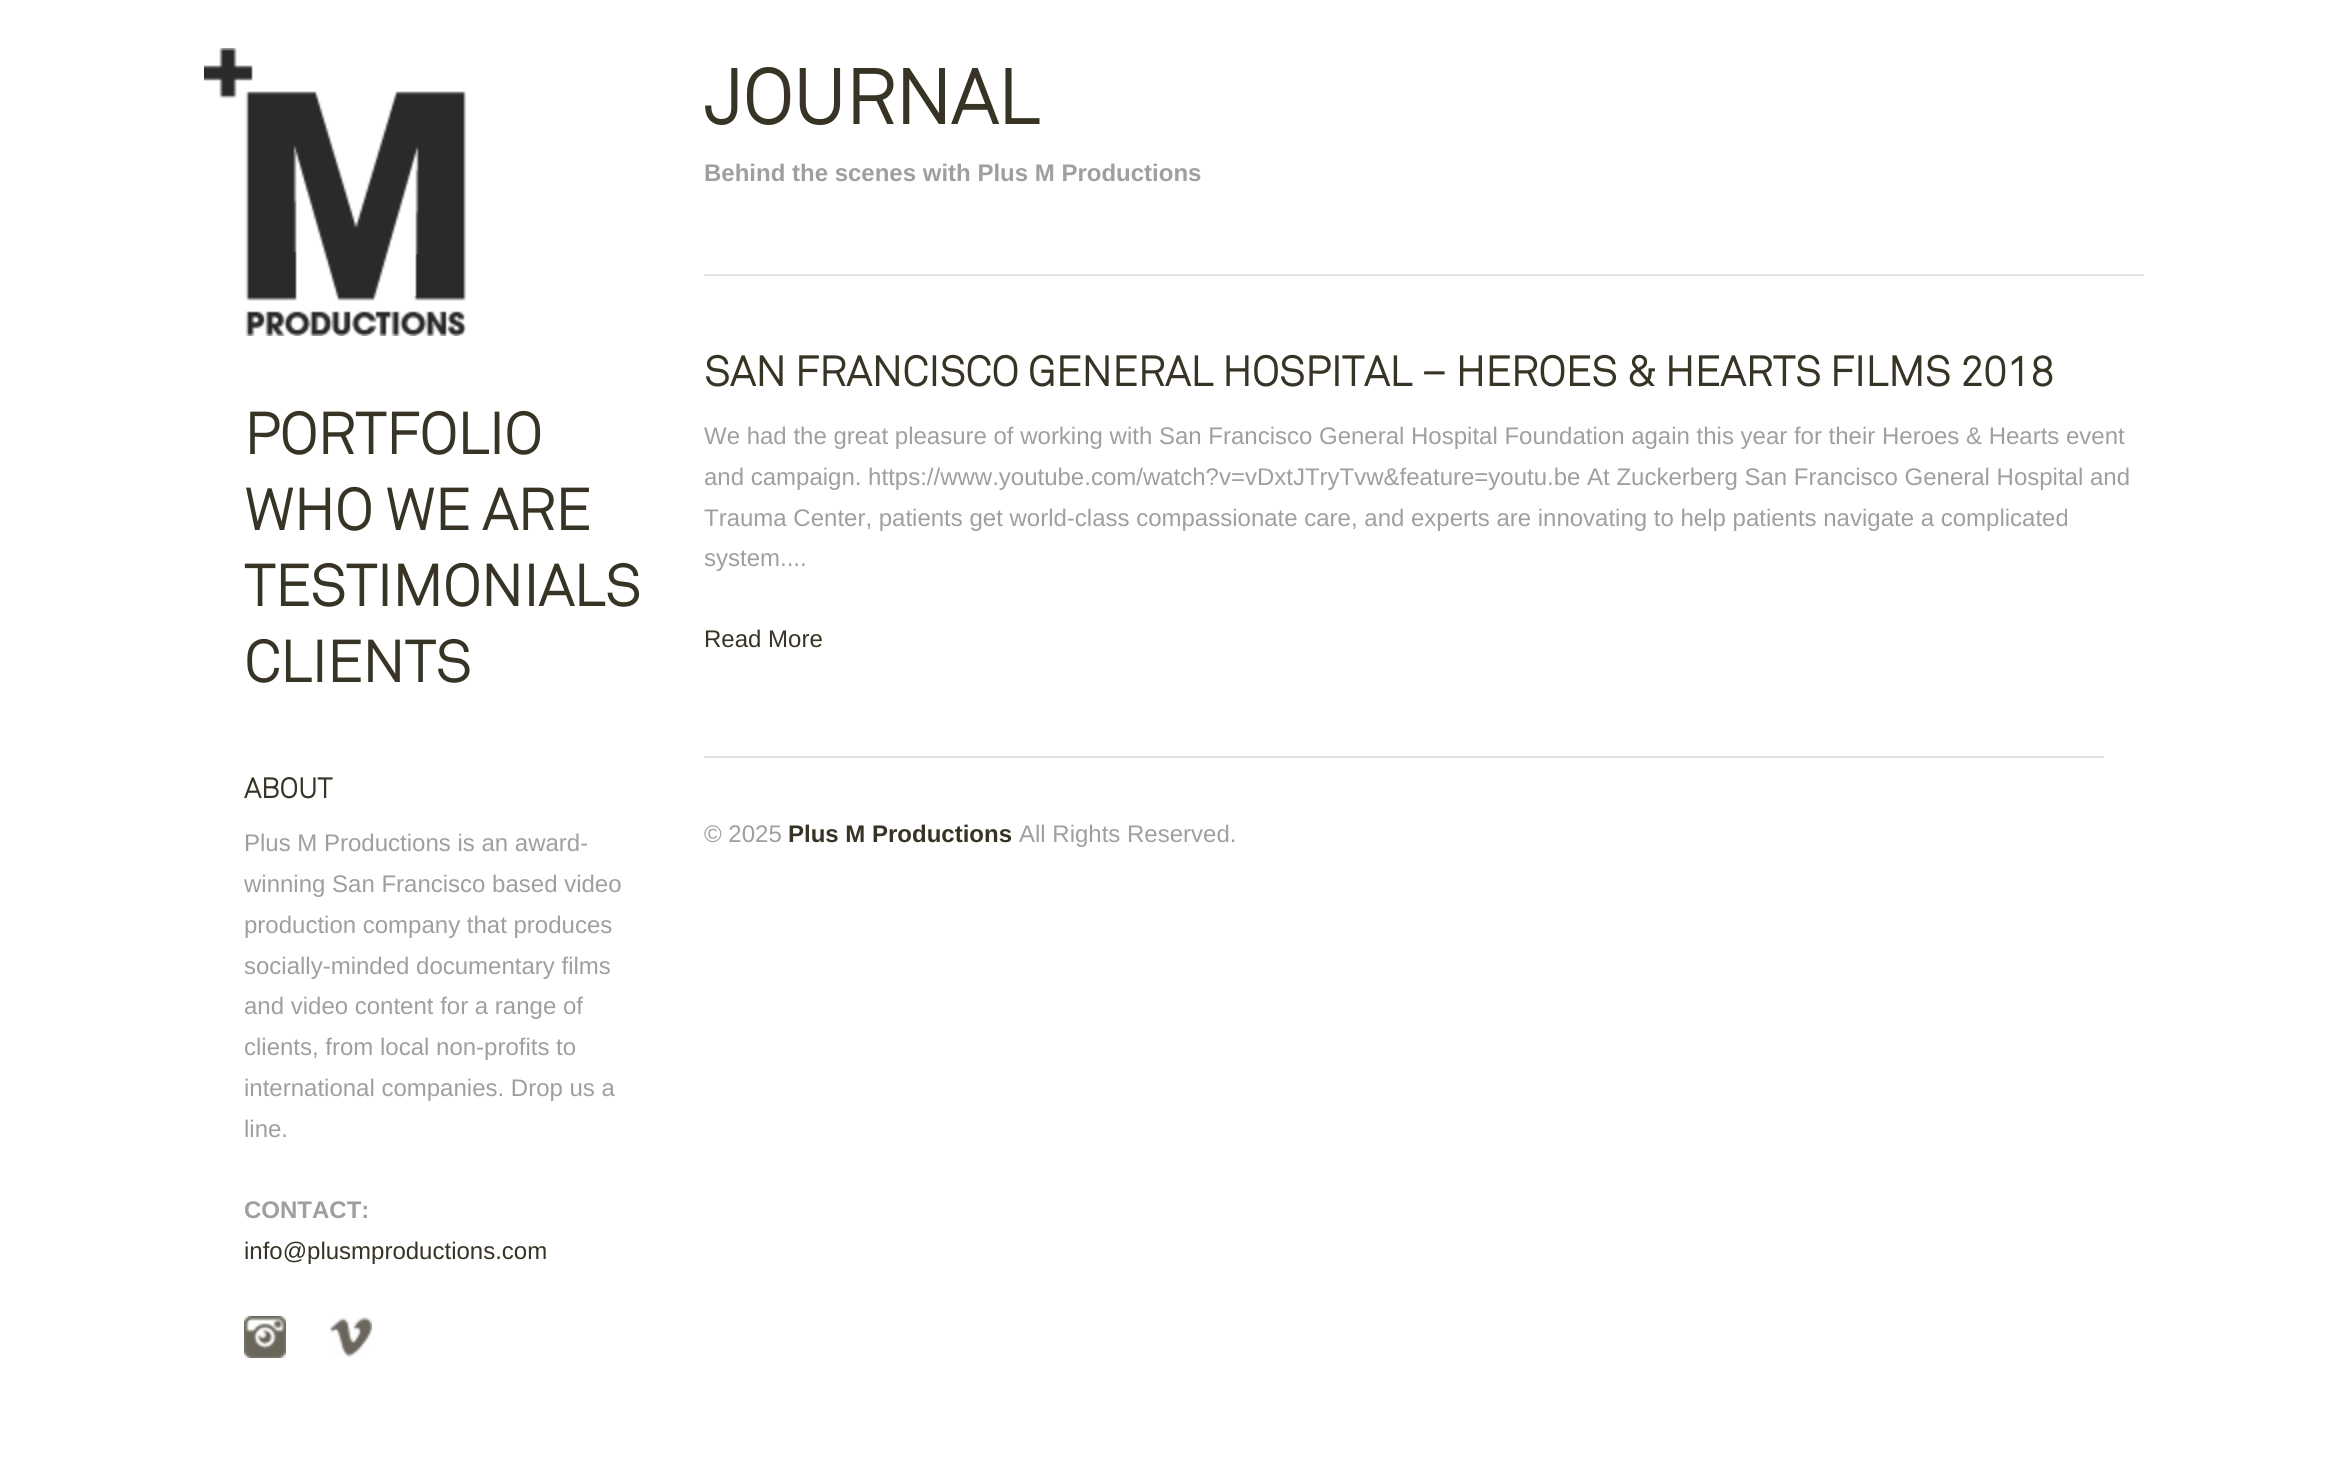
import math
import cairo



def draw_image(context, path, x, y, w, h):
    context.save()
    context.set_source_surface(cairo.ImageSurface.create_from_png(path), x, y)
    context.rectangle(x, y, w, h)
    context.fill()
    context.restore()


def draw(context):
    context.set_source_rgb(1, 1, 1)
    context.paint()
    draw_image(context, "images/1.png", 204, 48, 262, 288)
    draw_image(context, "images/2.png", 244, 1316, 42, 42)
    draw_image(context, "images/3.png", 330, 1317, 42, 41)
    context.set_source_rgb(228 / 255, 228 / 255, 228 / 255)
    context.rectangle(704, 274, 1440, 2)
    context.fill()
    context.set_source_rgb(227 / 255, 226 / 255, 222 / 255)
    context.rectangle(704, 756, 1400, 2)
    context.fill()
    context.select_font_face("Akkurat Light", cairo.FontSlant.NORMAL, cairo.FontWeight.BOLD)
    context.set_font_size(57.5)
    context.set_source_rgb(55 / 255, 51 / 255, 37 / 255)
    context.move_to(244, 454)
    context.show_text("PORTFOLIO")
    context.move_to(244, 530)
    context.show_text("WHO WE ARE")
    context.move_to(244, 606)
    context.show_text("TESTIMONIALS")
    context.move_to(244, 682)
    context.show_text("CLIENTS")
    context.set_font_size(28)
    context.move_to(244, 798)
    context.show_text("ABOUT")
    context.select_font_face("Liberation Sans")
    context.set_font_size(24)
    context.set_source_rgb(159 / 255, 159 / 255, 159 / 255)
    context.move_to(244, 851)
    context.show_text("Plus M Productions is an award-")
    context.move_to(244, 892)
    context.show_text("winning San Francisco based video")
    context.move_to(244, 933)
    context.show_text("production company that produces")
    context.move_to(244, 974)
    context.show_text("socially-minded documentary films")
    context.move_to(244, 1014)
    context.show_text("and video content for a range of")
    context.move_to(244, 1055)
    context.show_text("clients, from local non-profits to")
    context.move_to(244, 1096)
    context.show_text("international companies. Drop us a")
    context.move_to(244, 1137)
    context.show_text("line.")
    context.select_font_face("Liberation Sans", cairo.FontSlant.NORMAL, cairo.FontWeight.BOLD)
    context.move_to(244, 1218)
    context.show_text("CONTACT:")
    context.select_font_face("Liberation Sans")
    context.set_source_rgb(55 / 255, 51 / 255, 37 / 255)
    context.move_to(244, 1259)
    context.show_text("info@plusmproductions.com")
    context.select_font_face("Akkurat Light", cairo.FontSlant.NORMAL, cairo.FontWeight.BOLD)
    context.set_font_size(76)
    context.move_to(704, 124)
    context.show_text("JOURNAL")
    context.select_font_face("Liberation Sans", cairo.FontSlant.NORMAL, cairo.FontWeight.BOLD)
    context.set_font_size(24)
    context.set_source_rgb(159 / 255, 159 / 255, 159 / 255)
    context.move_to(704, 181)
    context.show_text("Behind the scenes with Plus M Productions")
    context.select_font_face("Akkurat Light", cairo.FontSlant.NORMAL, cairo.FontWeight.BOLD)
    context.set_font_size(41.6)
    context.set_source_rgb(55 / 255, 51 / 255, 37 / 255)
    context.move_to(704, 386)
    context.show_text("SAN FRANCISCO GENERAL HOSPITAL – HEROES & HEARTS FILMS 2018")
    context.select_font_face("Liberation Sans")
    context.set_font_size(24)
    context.set_source_rgb(159 / 255, 159 / 255, 159 / 255)
    context.move_to(704, 444)
    context.show_text("We had the great pleasure of working with San Francisco General Hospital Foundation again this year for their Heroes & Hearts event")
    context.move_to(704, 485)
    context.show_text("and campaign. https://www.youtube.com/watch?v=vDxtJTryTvw&feature=youtu.be At Zuckerberg San Francisco General Hospital and")
    context.move_to(704, 526)
    context.show_text("Trauma Center, patients get world-class compassionate care, and experts are innovating to help patients navigate a complicated")
    context.move_to(704, 566)
    context.show_text("system....")
    context.set_source_rgb(55 / 255, 51 / 255, 37 / 255)
    context.move_to(704, 647)
    context.show_text("Read More")
    context.set_source_rgb(159 / 255, 159 / 255, 159 / 255)
    context.move_to(704, 842)
    context.show_text("© 2025")
    context.select_font_face("Liberation Sans", cairo.FontSlant.NORMAL, cairo.FontWeight.BOLD)
    context.set_source_rgb(55 / 255, 51 / 255, 37 / 255)
    context.move_to(788, 842)
    context.show_text("Plus M Productions")
    context.select_font_face("Liberation Sans")
    context.set_source_rgb(159 / 255, 159 / 255, 159 / 255)
    context.move_to(1019, 842)
    context.show_text("All Rights Reserved.")


surface = cairo.ImageSurface(cairo.Format.RGB24, 2347, 1462)
context = cairo.Context(surface)
options = cairo.FontOptions()
options.set_hint_metrics(cairo.HintMetrics.OFF)
options.set_hint_style(cairo.HintStyle.NONE)
context.set_font_options(options)
context.set_miter_limit(4)
draw(context)
surface.write_to_png("out.png")
